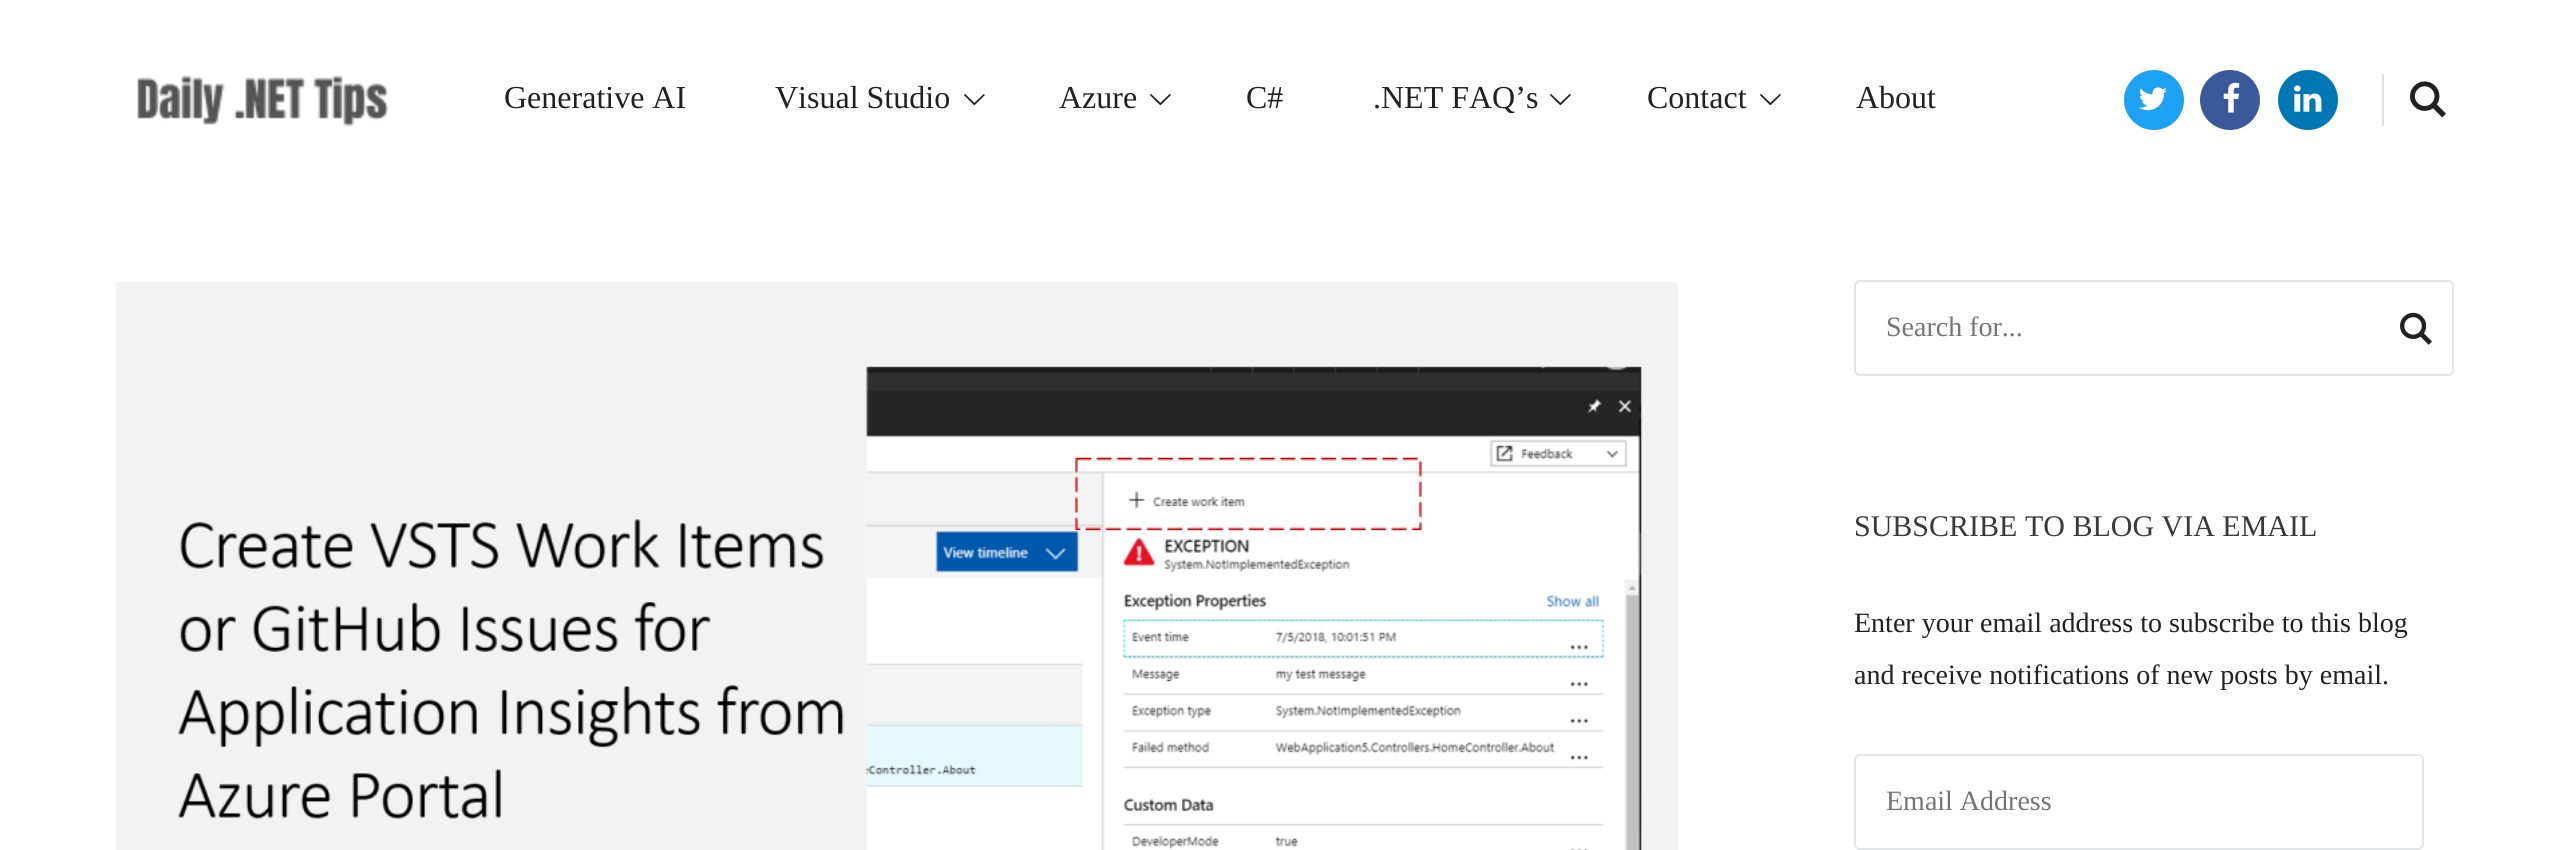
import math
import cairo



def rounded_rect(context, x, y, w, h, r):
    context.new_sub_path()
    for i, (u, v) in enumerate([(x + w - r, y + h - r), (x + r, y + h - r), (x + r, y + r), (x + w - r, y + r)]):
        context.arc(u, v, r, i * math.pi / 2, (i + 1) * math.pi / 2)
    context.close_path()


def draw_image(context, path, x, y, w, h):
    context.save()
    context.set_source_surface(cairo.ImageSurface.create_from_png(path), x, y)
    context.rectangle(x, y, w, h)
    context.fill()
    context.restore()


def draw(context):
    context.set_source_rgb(1, 1, 1)
    context.paint()
    draw_image(context, "images/1.png", 137, 75, 252, 52)
    draw_image(context, "images/2.png", 964, 94, 21, 12)
    draw_image(context, "images/2.png", 1150, 94, 21, 12)
    draw_image(context, "images/2.png", 1550, 94, 21, 12)
    draw_image(context, "images/2.png", 1760, 94, 21, 12)
    context.set_source_rgb(29 / 255, 161 / 255, 242 / 255)
    context.arc(2154, 100, 30, 0, 2 * math.pi)
    context.fill()
    draw_image(context, "images/3.png", 2139, 87, 28, 24)
    context.set_source_rgb(59 / 255, 89 / 255, 152 / 255)
    context.arc(2230, 100, 30, 0, 2 * math.pi)
    context.fill()
    draw_image(context, "images/4.png", 2223, 82, 17, 31)
    context.set_source_rgb(0, 119 / 255, 181 / 255)
    context.arc(2308, 100, 30, 0, 2 * math.pi)
    context.fill()
    draw_image(context, "images/5.png", 2294, 85, 28, 27)
    context.set_source_rgb(222 / 255, 222 / 255, 222 / 255)
    context.rectangle(2382, 74, 2, 52)
    context.fill()
    draw_image(context, "images/6.png", 2410, 81, 36, 37)
    draw_image(context, "images/7.png", 115, 281, 1564, 569)
    rounded_rect(context, 1855, 281, 598, 94, 5)
    context.set_source_rgb(226 / 255, 228 / 255, 232 / 255)
    context.stroke()
    draw_image(context, "images/8.png", 2400, 312, 32, 33)
    rounded_rect(context, 1855, 755, 568, 94, 5)
    context.stroke()
    context.select_font_face("Liberation Serif")
    context.set_font_size(32)
    context.set_source_rgb(33 / 255, 33 / 255, 33 / 255)
    context.move_to(504, 108)
    context.show_text("Generative AI")
    context.move_to(775, 108)
    context.show_text("Visual Studio")
    context.move_to(1059, 108)
    context.show_text("Azure")
    context.move_to(1246, 108)
    context.show_text("C#")
    context.move_to(1373, 108)
    context.show_text(".NET FAQ’s")
    context.move_to(1647, 108)
    context.show_text("Contact")
    context.move_to(1856, 108)
    context.show_text("About")
    context.set_font_size(28)
    context.set_source_rgb(117 / 255, 117 / 255, 117 / 255)
    context.move_to(1886, 336)
    context.show_text("Search for...")
    context.set_font_size(30)
    context.set_source_rgb(57 / 255, 57 / 255, 57 / 255)
    context.move_to(1854, 536)
    context.show_text("SUBSCRIBE TO BLOG VIA EMAIL")
    context.set_font_size(28)
    context.set_source_rgb(33 / 255, 33 / 255, 33 / 255)
    context.move_to(1854, 632)
    context.show_text("Enter your email address to subscribe to this blog")
    context.move_to(1854, 684)
    context.show_text("and receive notifications of new posts by email.")
    context.set_source_rgb(117 / 255, 117 / 255, 117 / 255)
    context.move_to(1886, 810)
    context.show_text("Email Address")


surface = cairo.ImageSurface(cairo.Format.RGB24, 2568, 850)
context = cairo.Context(surface)
options = cairo.FontOptions()
options.set_hint_metrics(cairo.HintMetrics.OFF)
options.set_hint_style(cairo.HintStyle.NONE)
context.set_font_options(options)
context.set_miter_limit(4)
draw(context)
surface.write_to_png("out.png")
